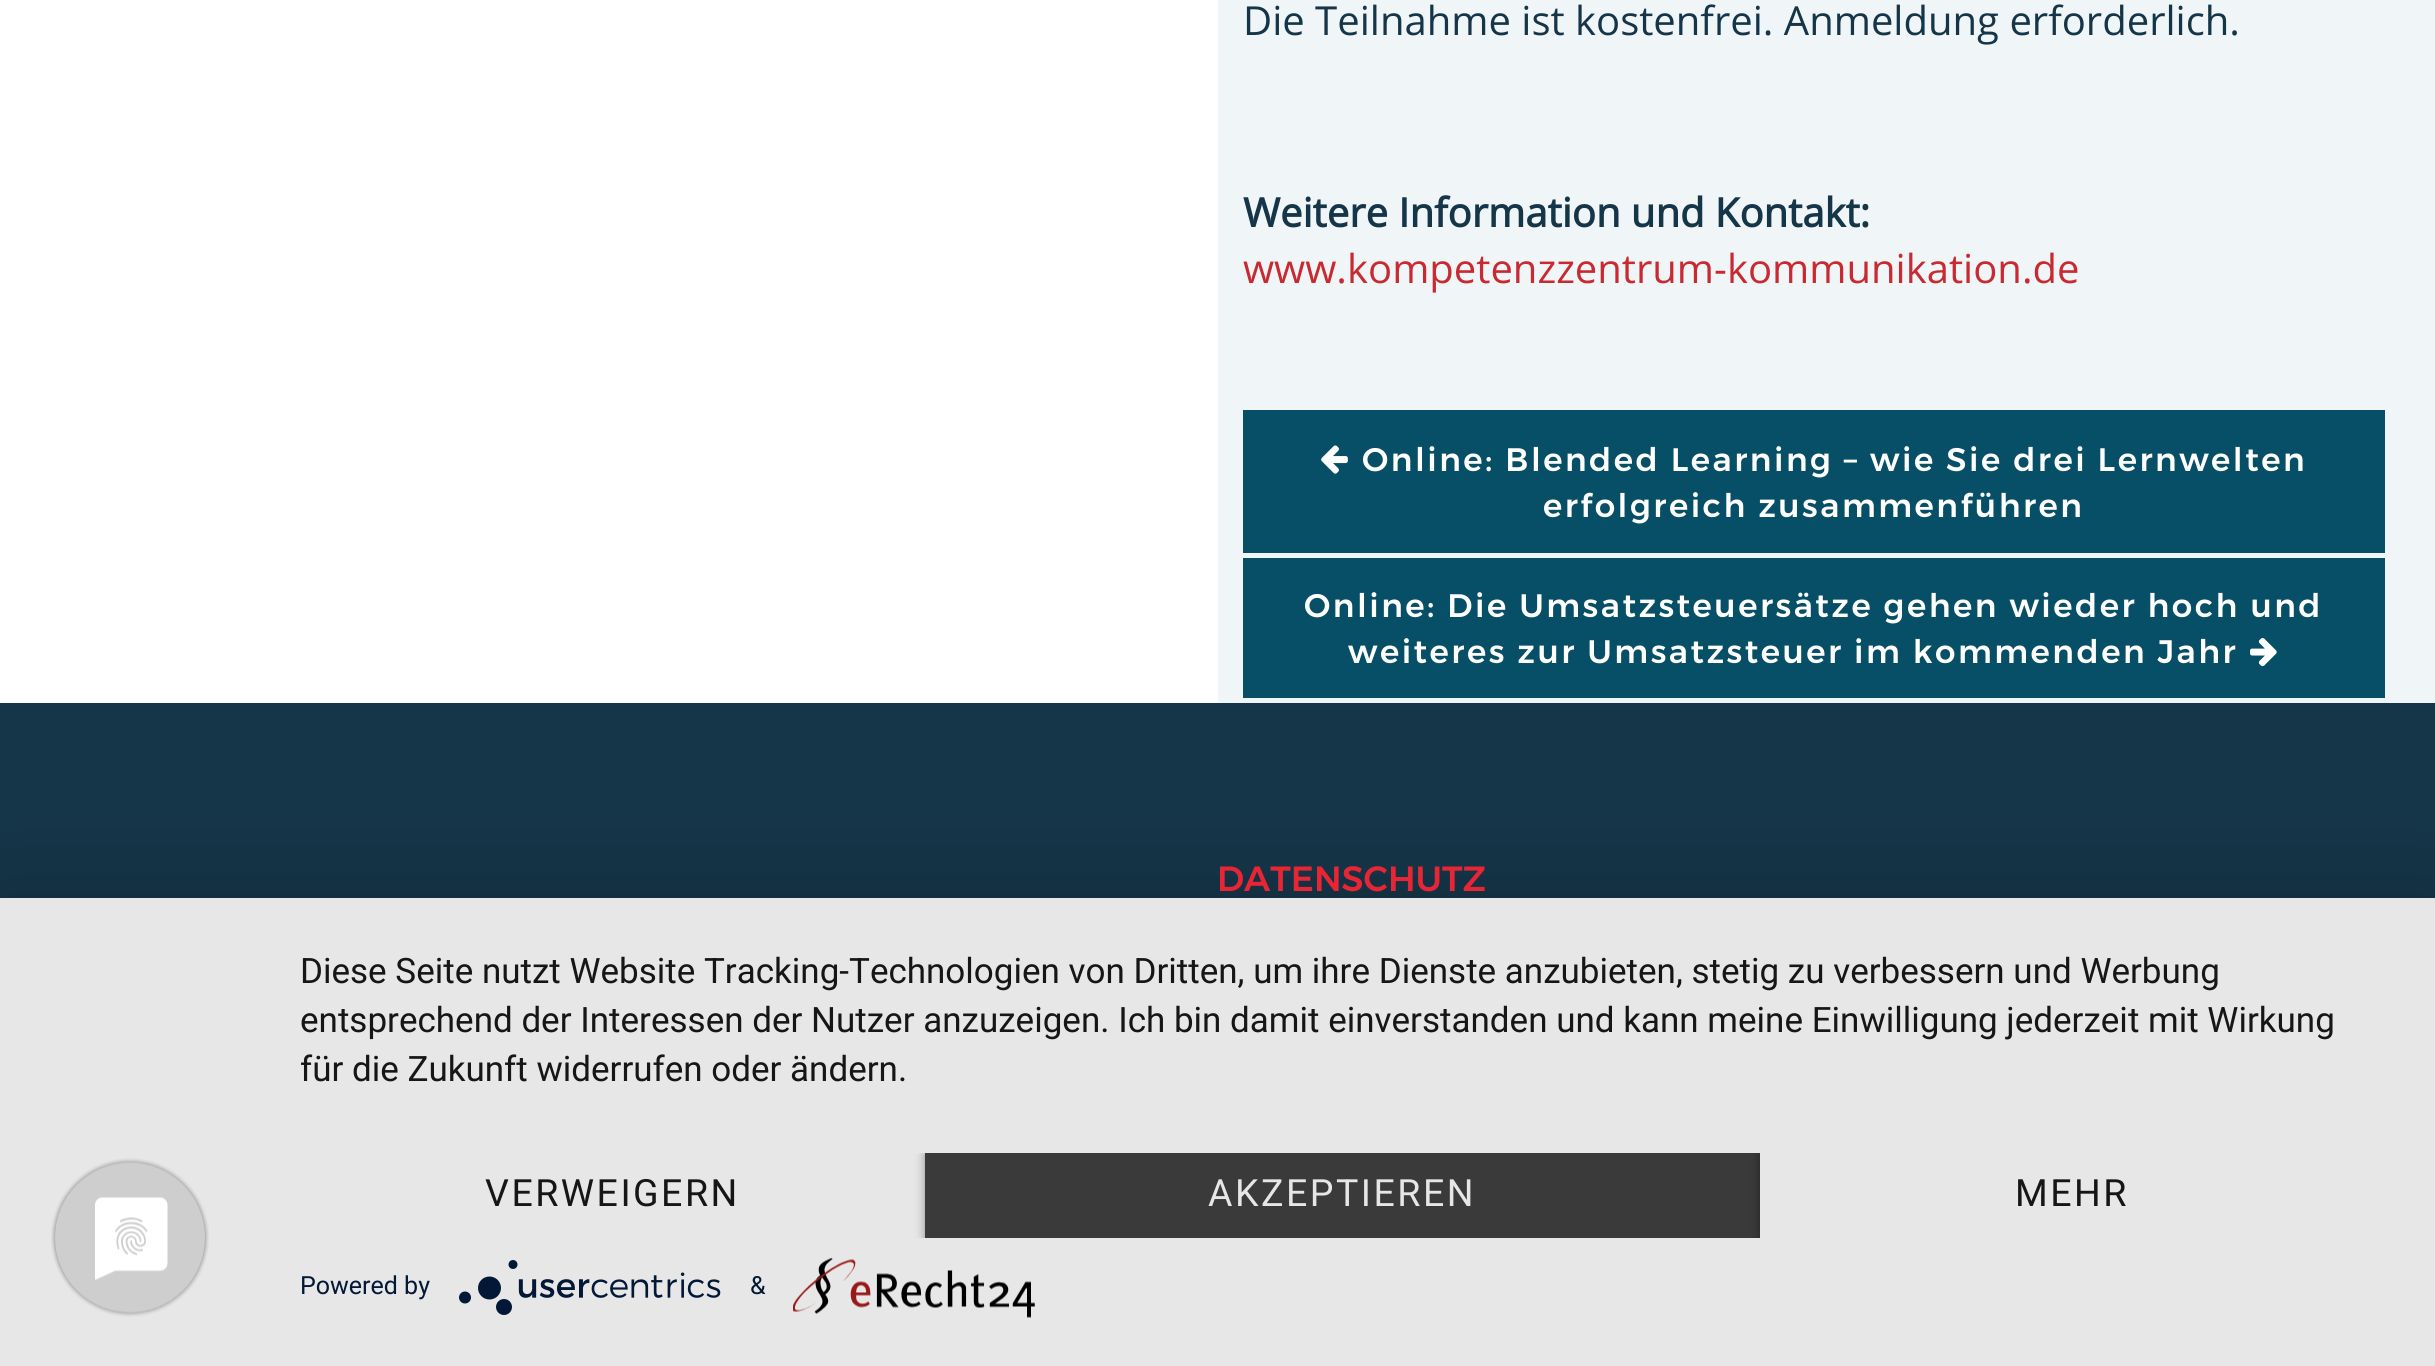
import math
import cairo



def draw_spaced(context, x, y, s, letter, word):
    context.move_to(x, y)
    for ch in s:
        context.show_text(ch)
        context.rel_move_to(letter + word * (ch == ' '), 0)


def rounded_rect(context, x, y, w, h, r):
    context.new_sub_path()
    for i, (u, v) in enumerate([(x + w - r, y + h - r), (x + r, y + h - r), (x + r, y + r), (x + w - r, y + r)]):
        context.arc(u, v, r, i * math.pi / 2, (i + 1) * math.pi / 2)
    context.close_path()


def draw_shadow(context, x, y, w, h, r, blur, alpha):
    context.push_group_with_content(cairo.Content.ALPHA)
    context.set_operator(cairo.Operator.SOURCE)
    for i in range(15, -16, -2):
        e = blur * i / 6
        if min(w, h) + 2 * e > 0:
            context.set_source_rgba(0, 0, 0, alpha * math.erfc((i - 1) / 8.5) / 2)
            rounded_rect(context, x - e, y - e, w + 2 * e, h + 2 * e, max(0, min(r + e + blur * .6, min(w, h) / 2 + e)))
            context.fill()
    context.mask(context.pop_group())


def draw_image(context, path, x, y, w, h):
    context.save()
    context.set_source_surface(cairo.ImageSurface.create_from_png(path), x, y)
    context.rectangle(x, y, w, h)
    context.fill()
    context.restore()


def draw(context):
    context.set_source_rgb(1, 1, 1)
    context.paint()
    context.set_source_rgb(240 / 255, 245 / 255, 247 / 255)
    context.rectangle(1218, 0, 1217, 703)
    context.fill()
    context.set_source_rgb(7 / 255, 79 / 255, 103 / 255)
    context.rectangle(1243, 410, 1142, 143)
    context.fill()
    draw_image(context, "images/1.png", 1321, 445, 27, 29)
    context.rectangle(1243, 558, 1142, 140)
    context.fill()
    draw_image(context, "images/2.png", 2250, 637, 27, 30)
    context.set_source_rgb(21 / 255, 53 / 255, 72 / 255)
    context.rectangle(0, 703, 2435, 195)
    context.fill()
    context.set_source_rgb(0, 0, 0)
    draw_shadow(context, 0, 913, 2435, 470, 0, 45, 0.3)
    context.set_source_rgb(231 / 255, 231 / 255, 231 / 255)
    context.rectangle(0, 898, 2435, 468)
    context.fill()
    draw_image(context, "images/3.png", 51, 1158, 158, 159)
    context.save()
    context.rectangle(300, 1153, 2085, 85)
    context.clip()
    context.set_source_rgb(0, 0, 0)
    draw_shadow(context, 925, 1155, 835, 85, 0, 5, 0.4)
    context.restore()
    context.set_source_rgb(58 / 255, 58 / 255, 58 / 255)
    context.rectangle(925, 1153, 835, 85)
    context.fill()
    context.save()
    context.rectangle(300, 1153, 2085, 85)
    context.clip()
    context.set_source_rgb(0, 0, 0)
    draw_shadow(context, 1760, 1155, 625, 85, 0, 5, 0.4)
    context.restore()
    context.set_source_rgb(231 / 255, 231 / 255, 231 / 255)
    context.rectangle(1760, 1153, 625, 85)
    context.fill()
    draw_image(context, "images/4.png", 459, 1260, 262, 55)
    draw_image(context, "images/5.png", 793, 1257, 242, 61)
    context.select_font_face("Open Sans")
    context.set_font_size(40)
    context.set_source_rgb(21 / 255, 53 / 255, 72 / 255)
    context.move_to(1243, 35)
    context.show_text("Die Teilnahme ist kostenfrei. Anmeldung erforderlich.")
    context.select_font_face("Open Sans", cairo.FontSlant.NORMAL, cairo.FontWeight.BOLD)
    context.move_to(1243, 227)
    context.show_text("Weitere Information und Kontakt:")
    context.select_font_face("Open Sans")
    context.set_source_rgb(201 / 255, 41 / 255, 48 / 255)
    context.move_to(1243, 283)
    context.show_text("www.kompetenzzentrum-kommunikation.de")
    context.select_font_face("Montserrat Medium")
    context.set_font_size(32.5)
    context.set_source_rgb(1, 1, 1)
    draw_spaced(context, 1362, 471, "Online: Blended Learning – wie Sie drei Lernwelten", 2.5, 0)
    draw_spaced(context, 1543, 517, "erfolgreich zusammenführen", 2.5, 0)
    draw_spaced(context, 1304, 617, "Online: Die Umsatzsteuersätze gehen wieder hoch und", 2.5, 0)
    draw_spaced(context, 1348, 663, "weiteres zur Umsatzsteuer im kommenden Jahr", 2.5, 0)
    context.set_font_size(35)
    context.set_source_rgb(232 / 255, 37 / 255, 53 / 255)
    context.move_to(1217, 891)
    context.show_text("DATENSCHUTZ")
    context.select_font_face("Roboto")
    context.set_source_rgb(22 / 255, 22 / 255, 22 / 255)
    context.move_to(300, 983)
    context.show_text("Diese Seite nutzt Website Tracking-Technologien von Dritten, um ihre Dienste anzubieten, stetig zu verbessern und Werbung")
    context.move_to(300, 1032)
    context.show_text("entsprechend der Interessen der Nutzer anzuzeigen. Ich bin damit einverstanden und kann meine Einwilligung jederzeit mit Wirkung")
    context.move_to(300, 1081)
    context.show_text("für die Zukunft widerrufen oder ändern.")
    context.set_font_size(37.5)
    draw_spaced(context, 485, 1206, "VERWEIGERN", 2.5, 0)
    context.set_source_rgb(230 / 255, 230 / 255, 230 / 255)
    draw_spaced(context, 1208, 1206, "AKZEPTIEREN", 2.5, 0)
    context.set_source_rgb(22 / 255, 22 / 255, 22 / 255)
    draw_spaced(context, 2015, 1206, "MEHR", 2.5, 0)
    context.set_font_size(25)
    context.set_source_rgb(2 / 255, 24 / 255, 54 / 255)
    context.move_to(300, 1294)
    context.show_text("Powered by")
    context.move_to(750, 1294)
    context.show_text("&")


surface = cairo.ImageSurface(cairo.Format.RGB24, 2435, 1366)
context = cairo.Context(surface)
options = cairo.FontOptions()
options.set_hint_metrics(cairo.HintMetrics.OFF)
options.set_hint_style(cairo.HintStyle.NONE)
context.set_font_options(options)
context.set_miter_limit(4)
draw(context)
surface.write_to_png("out.png")
